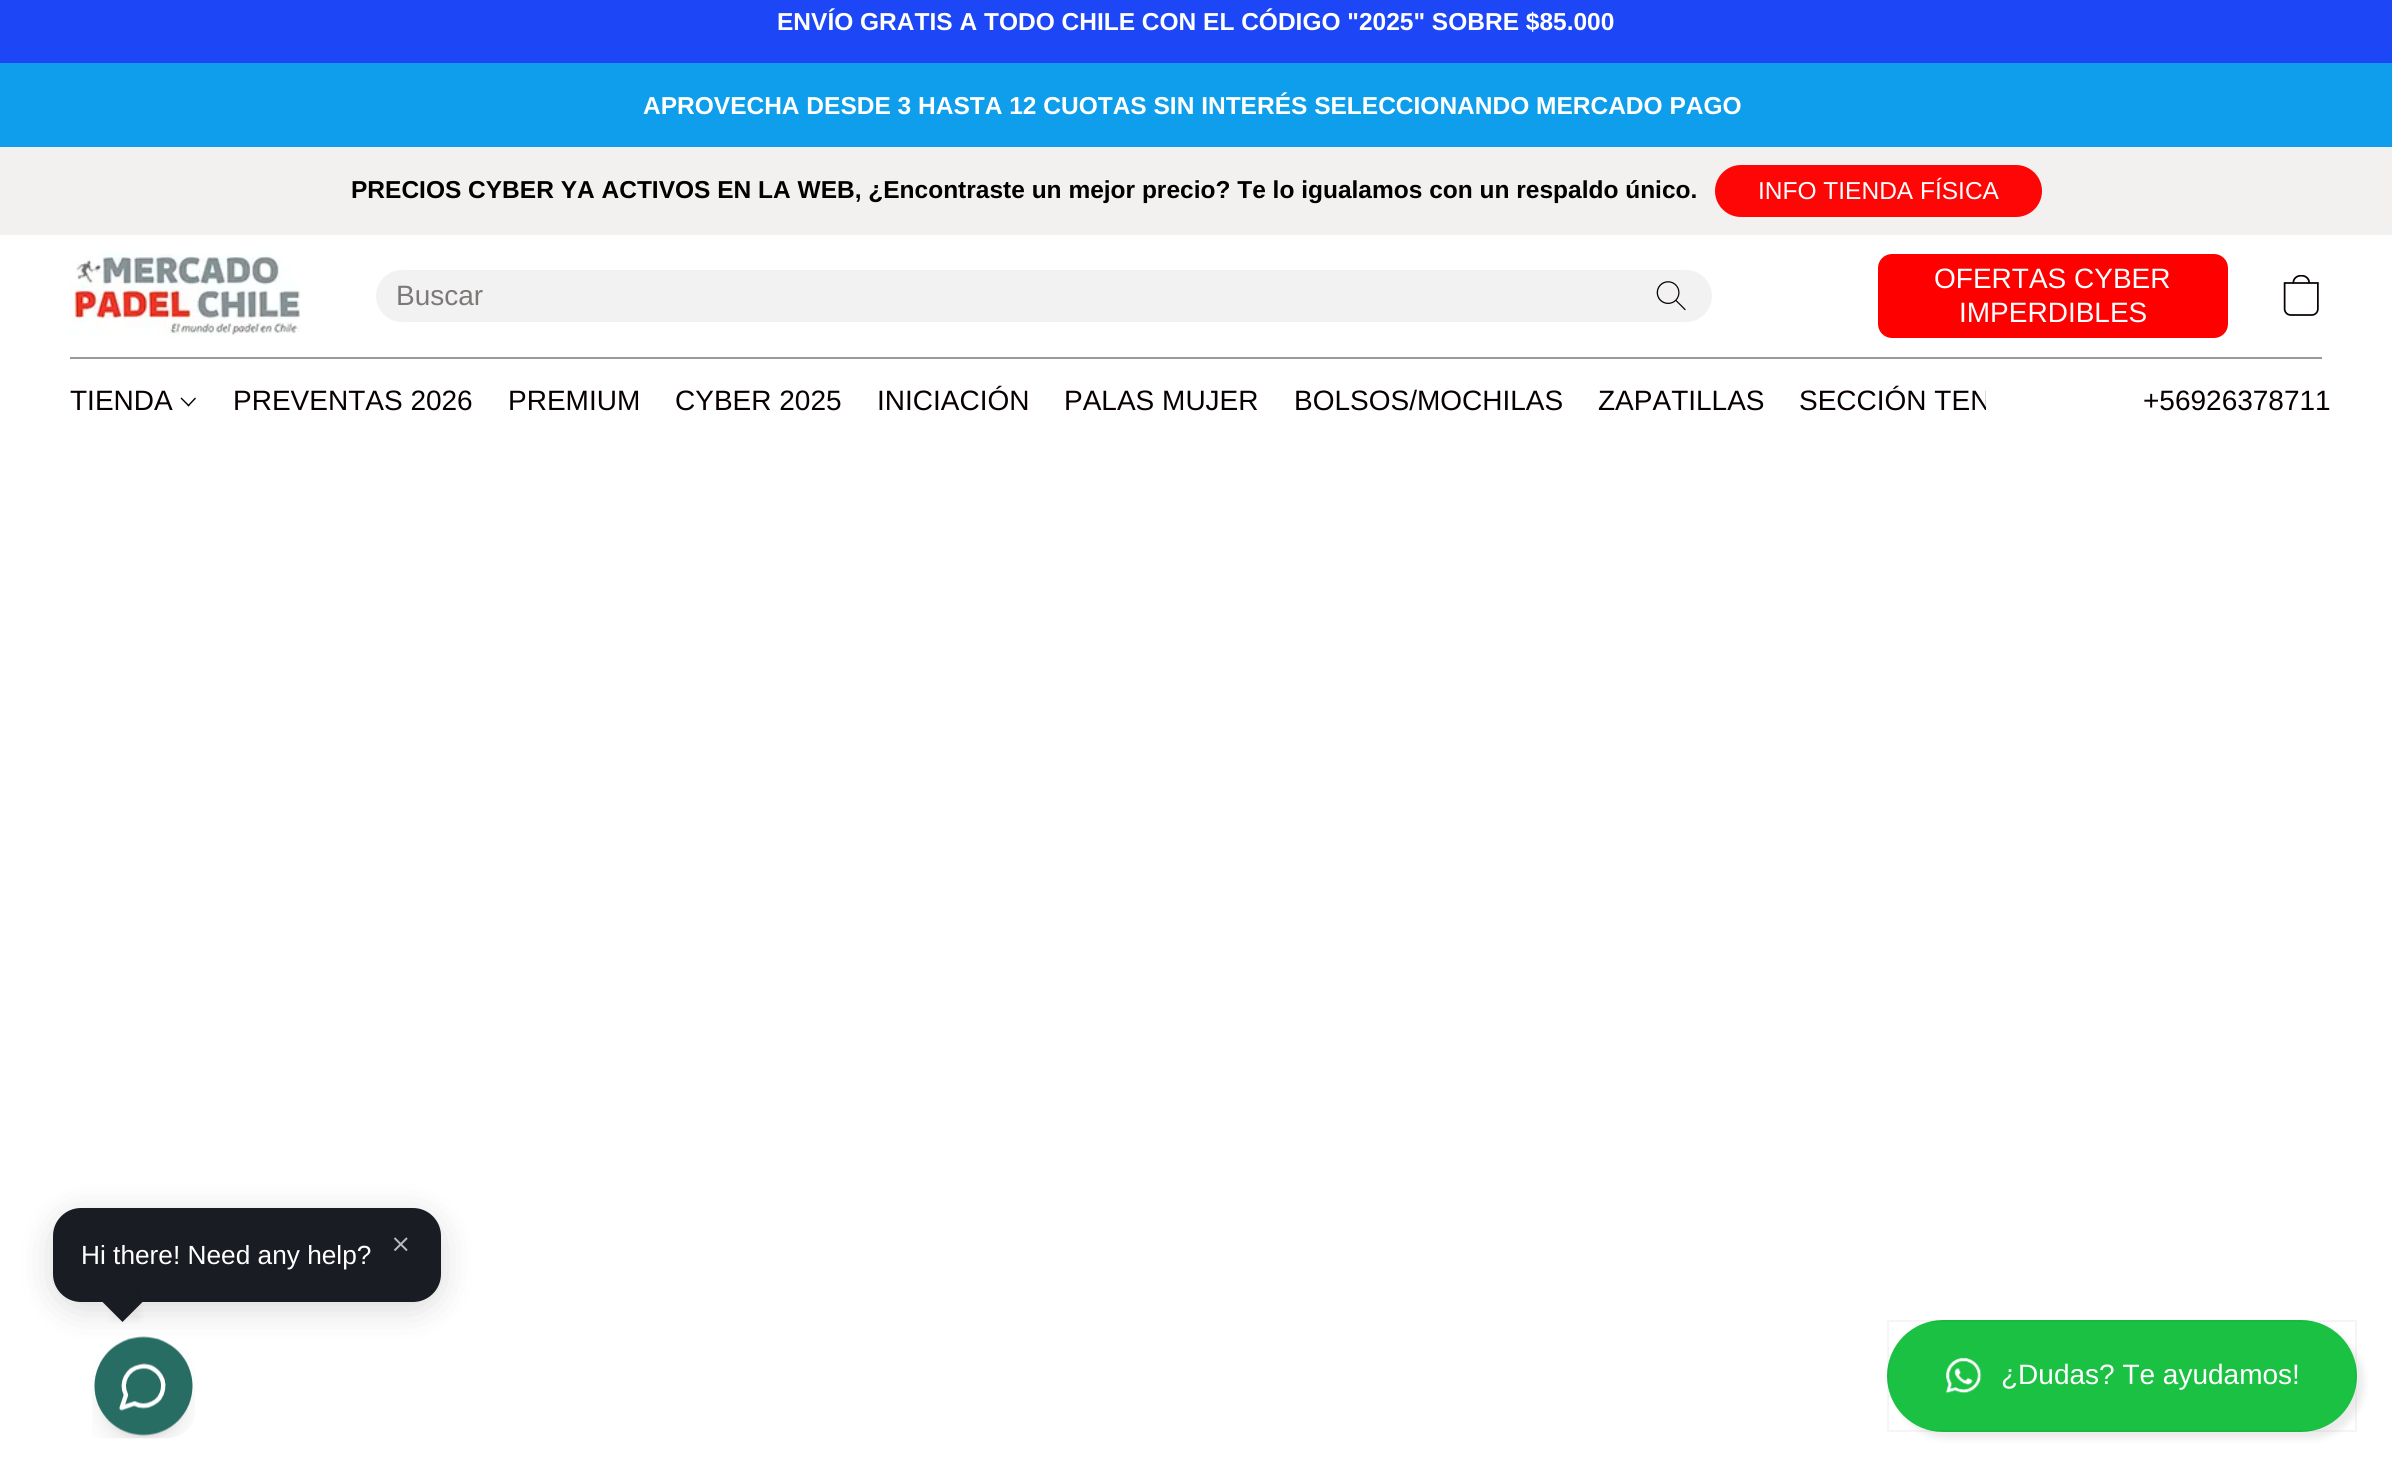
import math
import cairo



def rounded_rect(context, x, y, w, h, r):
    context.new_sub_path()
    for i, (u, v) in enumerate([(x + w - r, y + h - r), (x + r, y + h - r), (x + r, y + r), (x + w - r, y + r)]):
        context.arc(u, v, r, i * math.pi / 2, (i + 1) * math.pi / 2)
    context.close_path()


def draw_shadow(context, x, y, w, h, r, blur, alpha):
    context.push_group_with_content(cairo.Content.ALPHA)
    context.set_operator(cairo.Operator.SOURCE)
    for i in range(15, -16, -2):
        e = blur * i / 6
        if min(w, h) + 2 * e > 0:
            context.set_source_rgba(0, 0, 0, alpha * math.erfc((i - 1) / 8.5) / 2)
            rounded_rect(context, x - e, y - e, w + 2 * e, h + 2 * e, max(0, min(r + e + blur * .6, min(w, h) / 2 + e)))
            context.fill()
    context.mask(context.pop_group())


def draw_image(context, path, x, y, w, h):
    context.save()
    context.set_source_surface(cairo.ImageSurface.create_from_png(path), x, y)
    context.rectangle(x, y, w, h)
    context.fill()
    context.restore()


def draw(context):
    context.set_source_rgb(1, 1, 1)
    context.paint()
    context.set_source_rgb(29 / 255, 70 / 255, 247 / 255)
    context.rectangle(0, 0, 2392, 63)
    context.fill()
    context.set_source_rgb(14 / 255, 158 / 255, 235 / 255)
    context.rectangle(0, 63, 2392, 84)
    context.fill()
    context.set_source_rgb(243 / 255, 241 / 255, 240 / 255)
    context.rectangle(0, 147, 2392, 88)
    context.fill()
    context.set_source_rgb(1, 6 / 255, 6 / 255)
    rounded_rect(context, 1715, 165, 327, 52, 26)
    context.fill()
    draw_image(context, "images/1.png", 70, 252, 231, 85)
    context.set_source_rgb(243 / 255, 242 / 255, 242 / 255)
    rounded_rect(context, 376, 270, 1336, 52, 26)
    context.fill()
    draw_image(context, "images/2.png", 1656, 281, 30, 30)
    context.set_source_rgb(1, 0, 0)
    rounded_rect(context, 1878, 254, 350, 84, 14)
    context.fill()
    draw_image(context, "images/3.png", 2283, 275, 36, 41)
    context.set_source_rgb(157 / 255, 153 / 255, 153 / 255)
    context.rectangle(70, 357, 2252, 2)
    context.fill()
    context.set_source_rgb(8 / 255, 0, 0)
    context.new_path()
    context.move_to(187.5, 405.5)
    context.line_to(195, 397.5)
    context.line_to(196, 398.5)
    context.line_to(188.5, 406.5)
    context.close_path()
    context.fill()
    context.new_path()
    context.move_to(180.5, 398.5)
    context.line_to(181.5, 397.5)
    context.line_to(189.5, 405.5)
    context.line_to(188.5, 406.5)
    context.close_path()
    context.fill()
    context.set_source_rgb(0, 0, 0)
    draw_shadow(context, 1894, 1327, 470, 112, 56, 3.5, 0.08)
    context.set_source_rgb(26 / 255, 193 / 255, 67 / 255)
    rounded_rect(context, 1887, 1320, 470, 112, 56)
    context.fill()
    context.rectangle(1888, 1321, 468, 110)
    context.set_source_rgba(22 / 255, 22 / 255, 22 / 255, 0.04)
    context.stroke()
    draw_image(context, "images/4.png", 1946, 1358, 36, 36)
    draw_image(context, "images/5.png", 92, 1336, 103, 103)
    context.set_source_rgb(0, 0, 0)
    draw_shadow(context, 53, 1215, 388, 94, 28, 17.5, 0.15)
    context.set_source_rgb(26 / 255, 28 / 255, 35 / 255)
    rounded_rect(context, 53, 1208, 388, 94, 28)
    context.fill()
    context.new_path()
    context.move_to(407, 1238)
    context.line_to(394.5, 1250.5)
    context.move_to(394.5, 1238)
    context.line_to(407, 1250.5)
    context.set_source_rgb(186 / 255, 187 / 255, 189 / 255)
    context.stroke()
    context.set_source_rgb(0, 0, 0)
    draw_shadow(context, 112, 1292, 28, 28, 0, 3.5, 0.05)
    context.set_source_rgb(26 / 255, 28 / 255, 35 / 255)
    context.new_path()
    context.move_to(122.5, 1282)
    context.line_to(142.5, 1302)
    context.line_to(122.5, 1322)
    context.line_to(102.5, 1302)
    context.close_path()
    context.fill()
    context.select_font_face("Liberation Sans", cairo.FontSlant.NORMAL, cairo.FontWeight.BOLD)
    context.set_font_size(24.5)
    context.set_source_rgb(1, 1, 1)
    context.move_to(777, 30)
    context.show_text("ENVÍO GRATIS A TODO CHILE CON EL CÓDIGO \"2025\" SOBRE $85.000")
    context.move_to(643, 114)
    context.show_text("APROVECHA DESDE 3 HASTA 12 CUOTAS SIN INTERÉS SELECCIONANDO MERCADO PAGO")
    context.set_source_rgb(0, 0, 0)
    context.move_to(351, 198)
    context.show_text("PRECIOS CYBER YA ACTIVOS EN LA WEB, ¿Encontraste un mejor precio? Te lo igualamos con un respaldo único.")
    context.select_font_face("Liberation Sans")
    context.set_source_rgb(1, 1, 1)
    context.move_to(1758, 199)
    context.show_text("INFO TIENDA FÍSICA")
    context.set_font_size(28)
    context.set_source_rgb(126 / 255, 121 / 255, 121 / 255)
    context.move_to(396, 305)
    context.show_text("Buscar")
    context.set_source_rgb(1, 1, 1)
    context.move_to(1934, 288)
    context.show_text("OFERTAS CYBER")
    context.move_to(1959, 322)
    context.show_text("IMPERDIBLES")
    context.set_source_rgb(8 / 255, 0, 0)
    context.move_to(70, 410)
    context.show_text("TIENDA")
    context.move_to(233, 410)
    context.show_text("PREVENTAS 2026")
    context.move_to(508, 410)
    context.show_text("PREMIUM")
    context.move_to(675, 410)
    context.show_text("CYBER 2025")
    context.move_to(877, 410)
    context.show_text("INICIACIÓN")
    context.move_to(1064, 410)
    context.show_text("PALAS MUJER")
    context.move_to(1294, 410)
    context.show_text("BOLSOS/MOCHILAS")
    context.move_to(1598, 410)
    context.show_text("ZAPATILLAS")
    context.save()
    context.rectangle(70, 364, 1916, 81)
    context.clip()
    context.move_to(1799, 410)
    context.show_text("SECCIÓN TEN")
    context.restore()
    context.move_to(2143, 410)
    context.show_text("+56926378711")
    context.set_source_rgb(1, 1, 1)
    context.move_to(2001, 1384)
    context.show_text("¿Dudas? Te ayudamos!")
    context.set_font_size(26.25)
    context.move_to(81, 1264)
    context.show_text("Hi there! Need any help?")


surface = cairo.ImageSurface(cairo.Format.RGB24, 2392, 1466)
context = cairo.Context(surface)
options = cairo.FontOptions()
options.set_hint_metrics(cairo.HintMetrics.OFF)
options.set_hint_style(cairo.HintStyle.NONE)
context.set_font_options(options)
context.set_miter_limit(4)
draw(context)
surface.write_to_png("out.png")
